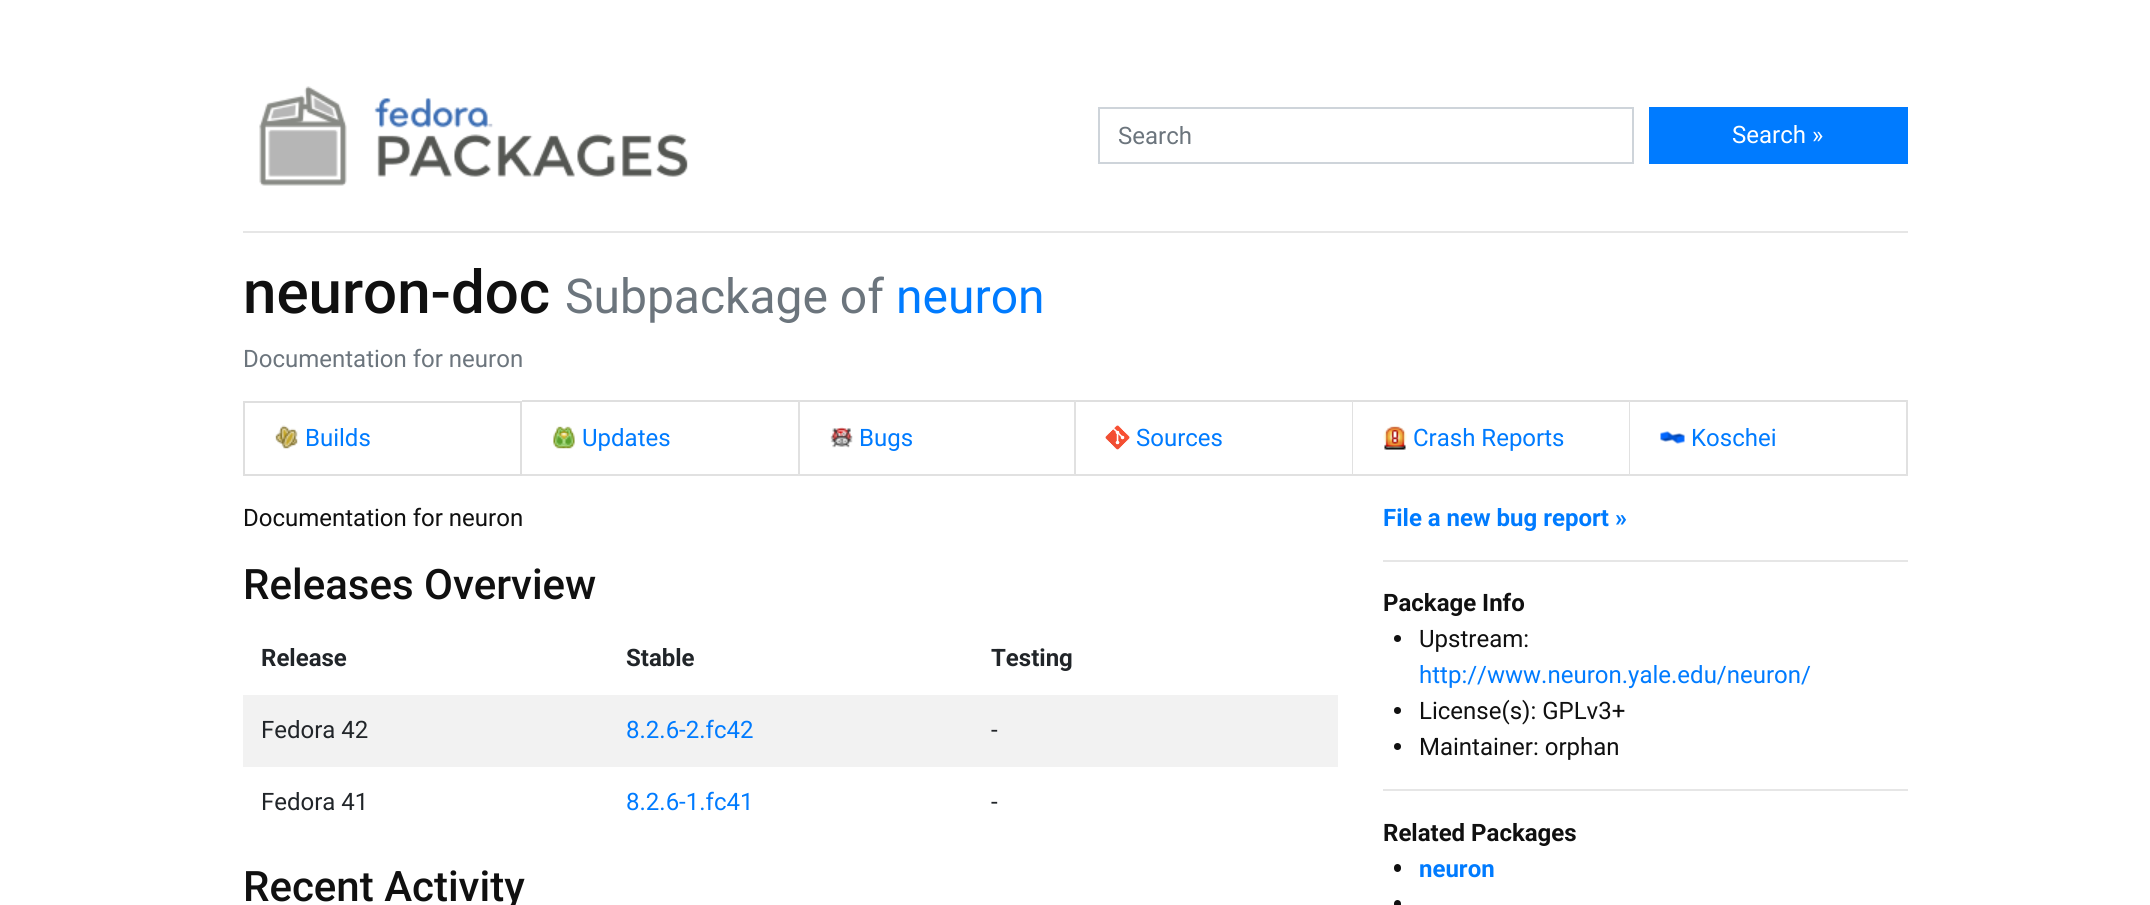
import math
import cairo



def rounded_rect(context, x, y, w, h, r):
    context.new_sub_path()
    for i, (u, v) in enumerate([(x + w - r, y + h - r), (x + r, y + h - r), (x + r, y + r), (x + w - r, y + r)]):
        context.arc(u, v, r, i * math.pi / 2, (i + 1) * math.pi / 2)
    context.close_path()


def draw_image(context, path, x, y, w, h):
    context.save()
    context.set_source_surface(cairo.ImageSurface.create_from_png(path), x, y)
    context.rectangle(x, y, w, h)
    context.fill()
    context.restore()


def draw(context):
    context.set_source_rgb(1, 1, 1)
    context.paint()
    draw_image(context, "images/1.png", 259, 86, 429, 100)
    context.rectangle(1099, 108, 534, 55)
    context.set_source_rgb(206 / 255, 212 / 255, 218 / 255)
    context.stroke()
    context.set_source_rgb(0, 123 / 255, 1)
    context.rectangle(1649, 107, 259, 57)
    context.fill()
    context.set_source_rgb(230 / 255, 230 / 255, 230 / 255)
    context.rectangle(243, 231, 1665, 2)
    context.fill()
    context.rectangle(244, 402, 277, 73)
    context.set_source_rgb(223 / 255, 223 / 255, 223 / 255)
    context.stroke()
    draw_image(context, "images/2.png", 275, 425, 23, 24)
    context.new_path()
    context.move_to(522, 400)
    context.line_to(800, 400)
    context.line_to(798, 402)
    context.line_to(522, 402)
    context.close_path()
    context.fill()
    context.set_source_rgba(0, 0, 0, 0.12)
    context.new_path()
    context.move_to(800, 400)
    context.line_to(800, 476)
    context.line_to(798, 474)
    context.line_to(798, 402)
    context.close_path()
    context.fill()
    context.new_path()
    context.move_to(800, 476)
    context.line_to(522, 476)
    context.line_to(522, 474)
    context.line_to(798, 474)
    context.close_path()
    context.fill()
    draw_image(context, "images/3.png", 553, 426, 22, 23)
    context.set_source_rgb(223 / 255, 223 / 255, 223 / 255)
    context.new_path()
    context.move_to(800, 400)
    context.line_to(1076, 400)
    context.line_to(1074, 402)
    context.line_to(800, 402)
    context.close_path()
    context.fill()
    context.set_source_rgba(0, 0, 0, 0.12)
    context.new_path()
    context.move_to(1076, 400)
    context.line_to(1076, 476)
    context.line_to(1074, 474)
    context.line_to(1074, 402)
    context.close_path()
    context.fill()
    context.new_path()
    context.move_to(1076, 476)
    context.line_to(800, 476)
    context.line_to(800, 474)
    context.line_to(1074, 474)
    context.close_path()
    context.fill()
    draw_image(context, "images/4.png", 830, 427, 23, 21)
    context.set_source_rgb(223 / 255, 223 / 255, 223 / 255)
    context.new_path()
    context.move_to(1076, 400)
    context.line_to(1353, 400)
    context.line_to(1352, 402)
    context.line_to(1076, 402)
    context.close_path()
    context.fill()
    context.set_source_rgba(0, 0, 0, 0.12)
    context.new_path()
    context.move_to(1353, 400)
    context.line_to(1353, 476)
    context.line_to(1352, 474)
    context.line_to(1352, 402)
    context.close_path()
    context.fill()
    context.new_path()
    context.move_to(1353, 476)
    context.line_to(1076, 476)
    context.line_to(1076, 474)
    context.line_to(1352, 474)
    context.close_path()
    context.fill()
    draw_image(context, "images/5.png", 1105, 425, 25, 25)
    context.set_source_rgb(223 / 255, 223 / 255, 223 / 255)
    context.new_path()
    context.move_to(1353, 400)
    context.line_to(1630, 400)
    context.line_to(1629, 402)
    context.line_to(1353, 402)
    context.close_path()
    context.fill()
    context.set_source_rgba(0, 0, 0, 0.12)
    context.new_path()
    context.move_to(1630, 400)
    context.line_to(1630, 476)
    context.line_to(1629, 474)
    context.line_to(1629, 402)
    context.close_path()
    context.fill()
    context.new_path()
    context.move_to(1630, 476)
    context.line_to(1353, 476)
    context.line_to(1353, 474)
    context.line_to(1629, 474)
    context.close_path()
    context.fill()
    draw_image(context, "images/6.png", 1383, 425, 24, 25)
    context.set_source_rgb(223 / 255, 223 / 255, 223 / 255)
    context.new_path()
    context.move_to(1630, 400)
    context.line_to(1908, 400)
    context.line_to(1906, 402)
    context.line_to(1630, 402)
    context.close_path()
    context.fill()
    context.set_source_rgba(0, 0, 0, 0.12)
    context.new_path()
    context.move_to(1908, 400)
    context.line_to(1908, 476)
    context.line_to(1906, 474)
    context.line_to(1906, 402)
    context.close_path()
    context.fill()
    context.new_path()
    context.move_to(1908, 476)
    context.line_to(1630, 476)
    context.line_to(1630, 474)
    context.line_to(1906, 474)
    context.close_path()
    context.fill()
    draw_image(context, "images/7.png", 1660, 431, 25, 13)
    context.set_source_rgb(242 / 255, 242 / 255, 242 / 255)
    context.rectangle(243, 695, 1095, 72)
    context.fill()
    context.set_source_rgb(230 / 255, 230 / 255, 230 / 255)
    context.rectangle(1383, 560, 525, 2)
    context.fill()
    context.set_source_rgb(16 / 255, 16 / 255, 16 / 255)
    context.arc(1397.5, 638.5, 3.5, 0, 2 * math.pi)
    context.fill()
    context.arc(1397.5, 710.5, 3.5, 0, 2 * math.pi)
    context.fill()
    context.arc(1397.5, 746.5, 3.5, 0, 2 * math.pi)
    context.fill()
    context.set_source_rgb(230 / 255, 230 / 255, 230 / 255)
    context.rectangle(1383, 789, 525, 2)
    context.fill()
    context.set_source_rgb(16 / 255, 16 / 255, 16 / 255)
    rounded_rect(context, 1394, 864, 7, 8, 3.5)
    context.fill()
    rounded_rect(context, 1394, 900, 7, 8, 3.5)
    context.fill()
    context.select_font_face("Roboto")
    context.set_font_size(24)
    context.set_source_rgb(108 / 255, 117 / 255, 125 / 255)
    context.move_to(1118, 144)
    context.show_text("Search")
    context.set_source_rgb(1, 1, 1)
    context.move_to(1732, 143)
    context.show_text("Search »")
    context.select_font_face("Roboto Medium")
    context.set_font_size(60)
    context.set_source_rgb(16 / 255, 16 / 255, 16 / 255)
    context.move_to(243, 313)
    context.show_text("neuron-doc")
    context.select_font_face("Roboto")
    context.set_font_size(48)
    context.set_source_rgb(108 / 255, 117 / 255, 125 / 255)
    context.move_to(565, 313)
    context.show_text("Subpackage of")
    context.set_source_rgb(0, 123 / 255, 1)
    context.move_to(896, 313)
    context.show_text("neuron")
    context.set_font_size(24)
    context.set_source_rgb(108 / 255, 117 / 255, 125 / 255)
    context.move_to(243, 367)
    context.show_text("Documentation for neuron")
    context.set_source_rgb(0, 123 / 255, 1)
    context.move_to(305, 446)
    context.show_text("Builds")
    context.move_to(582, 446)
    context.show_text("Updates")
    context.move_to(859, 446)
    context.show_text("Bugs")
    context.move_to(1136, 446)
    context.show_text("Sources")
    context.move_to(1413, 446)
    context.show_text("Crash Reports")
    context.move_to(1691, 446)
    context.show_text("Koschei")
    context.set_source_rgb(16 / 255, 16 / 255, 16 / 255)
    context.move_to(243, 526)
    context.show_text("Documentation for neuron")
    context.select_font_face("Roboto Medium")
    context.set_font_size(42)
    context.move_to(243, 599)
    context.show_text("Releases Overview")
    context.select_font_face("Roboto", cairo.FontSlant.NORMAL, cairo.FontWeight.BOLD)
    context.set_font_size(24)
    context.set_source_rgb(33 / 255, 37 / 255, 41 / 255)
    context.move_to(261, 666)
    context.show_text("Release")
    context.move_to(626, 666)
    context.show_text("Stable")
    context.move_to(991, 666)
    context.show_text("Testing")
    context.select_font_face("Roboto")
    context.move_to(261, 738)
    context.show_text("Fedora 42")
    context.set_source_rgb(0, 123 / 255, 1)
    context.move_to(626, 738)
    context.show_text("8.2.6-2.fc42")
    context.set_source_rgb(33 / 255, 37 / 255, 41 / 255)
    context.move_to(991, 738)
    context.show_text("-")
    context.move_to(261, 810)
    context.show_text("Fedora 41")
    context.set_source_rgb(0, 123 / 255, 1)
    context.move_to(626, 810)
    context.show_text("8.2.6-1.fc41")
    context.set_source_rgb(33 / 255, 37 / 255, 41 / 255)
    context.move_to(991, 810)
    context.show_text("-")
    context.select_font_face("Roboto Medium")
    context.set_font_size(42)
    context.set_source_rgb(16 / 255, 16 / 255, 16 / 255)
    context.move_to(243, 901)
    context.show_text("Recent Activity")
    context.select_font_face("Roboto", cairo.FontSlant.NORMAL, cairo.FontWeight.BOLD)
    context.set_font_size(24)
    context.set_source_rgb(0, 123 / 255, 1)
    context.move_to(1383, 526)
    context.show_text("File a new bug report »")
    context.set_source_rgb(16 / 255, 16 / 255, 16 / 255)
    context.move_to(1383, 611)
    context.show_text("Package Info")
    context.select_font_face("Roboto")
    context.move_to(1419, 647)
    context.show_text("Upstream:")
    context.set_source_rgb(0, 123 / 255, 1)
    context.move_to(1419, 683)
    context.show_text("http://www.neuron.yale.edu/neuron/")
    context.set_source_rgb(16 / 255, 16 / 255, 16 / 255)
    context.move_to(1419, 719)
    context.show_text("License(s): GPLv3+")
    context.move_to(1419, 755)
    context.show_text("Maintainer: orphan")
    context.select_font_face("Roboto", cairo.FontSlant.NORMAL, cairo.FontWeight.BOLD)
    context.move_to(1383, 841)
    context.show_text("Related Packages")
    context.set_source_rgb(0, 123 / 255, 1)
    context.move_to(1419, 877)
    context.show_text("neuron")


surface = cairo.ImageSurface(cairo.Format.RGB24, 2150, 905)
context = cairo.Context(surface)
options = cairo.FontOptions()
options.set_hint_metrics(cairo.HintMetrics.OFF)
options.set_hint_style(cairo.HintStyle.NONE)
context.set_font_options(options)
context.set_miter_limit(4)
draw(context)
surface.write_to_png("out.png")
